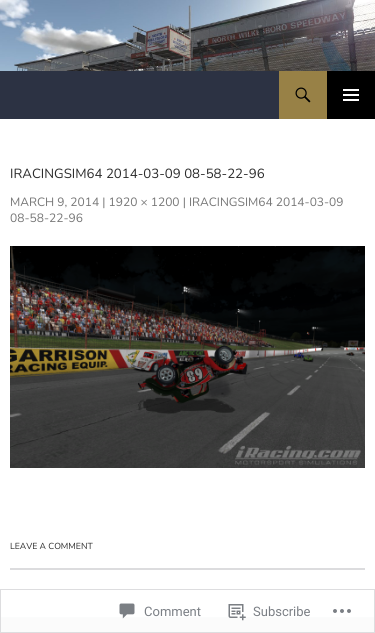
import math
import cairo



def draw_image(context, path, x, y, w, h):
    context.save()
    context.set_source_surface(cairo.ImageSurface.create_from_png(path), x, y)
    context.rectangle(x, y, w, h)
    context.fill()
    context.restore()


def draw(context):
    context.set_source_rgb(1, 1, 1)
    context.paint()
    draw_image(context, "images/1.png", 0, 0, 375, 71)
    context.set_source_rgb(44 / 255, 50 / 255, 67 / 255)
    context.rectangle(0, 71, 279, 48)
    context.fill()
    context.set_source_rgb(152 / 255, 129 / 255, 70 / 255)
    context.rectangle(279, 71, 48, 48)
    context.fill()
    draw_image(context, "images/2.png", 295, 87, 16, 16)
    context.set_source_rgb(0, 0, 0)
    context.rectangle(327, 71, 48, 48)
    context.fill()
    draw_image(context, "images/3.png", 343, 89, 16, 12)
    draw_image(context, "images/4.png", 10, 246, 355, 222)
    context.set_source_rgb(220 / 255, 220 / 255, 222 / 255)
    context.rectangle(10, 568, 355, 2)
    context.fill()
    context.set_source_rgb(251 / 255, 251 / 255, 251 / 255)
    context.rectangle(0, 618, 375, 15)
    context.fill()
    context.set_source_rgb(251 / 255, 252 / 255, 252 / 255)
    context.rectangle(0, 617, 375, 1)
    context.fill()
    context.rectangle(0.5, 589.5, 374, 43)
    context.set_source_rgba(220 / 255, 220 / 255, 222 / 255, 0.98)
    context.set_line_width(1)
    context.stroke()
    draw_image(context, "images/5.png", 119, 603, 16, 16)
    draw_image(context, "images/6.png", 228, 604, 18, 17)
    draw_image(context, "images/7.png", 333, 609, 18, 4)
    context.select_font_face("Nunito")
    context.set_font_size(13.25)
    context.set_source_rgb(43 / 255, 43 / 255, 43 / 255)
    context.move_to(10, 178)
    context.show_text("IRACINGSIM64 2014-03-09 08-58-22-96")
    context.set_font_size(12)
    context.set_source_rgb(118 / 255, 118 / 255, 118 / 255)
    context.move_to(10, 206)
    context.show_text("MARCH 9, 2014 | 1920 × 1200 | IRACINGSIM64 2014-03-09")
    context.move_to(10, 222)
    context.show_text("08-58-22-96")
    context.set_font_size(8.75)
    context.set_source_rgb(43 / 255, 43 / 255, 43 / 255)
    context.move_to(10, 549)
    context.show_text("LEAVE A COMMENT")
    context.select_font_face("Roboto")
    context.set_font_size(13)
    context.set_source_rgb(123 / 255, 127 / 255, 133 / 255)
    context.move_to(144, 616)
    context.show_text("Comment")
    context.move_to(253, 616)
    context.show_text("Subscribe")


surface = cairo.ImageSurface(cairo.Format.RGB24, 375, 633)
context = cairo.Context(surface)
options = cairo.FontOptions()
options.set_hint_metrics(cairo.HintMetrics.OFF)
options.set_hint_style(cairo.HintStyle.NONE)
context.set_font_options(options)
context.set_miter_limit(4)
draw(context)
surface.write_to_png("out.png")
